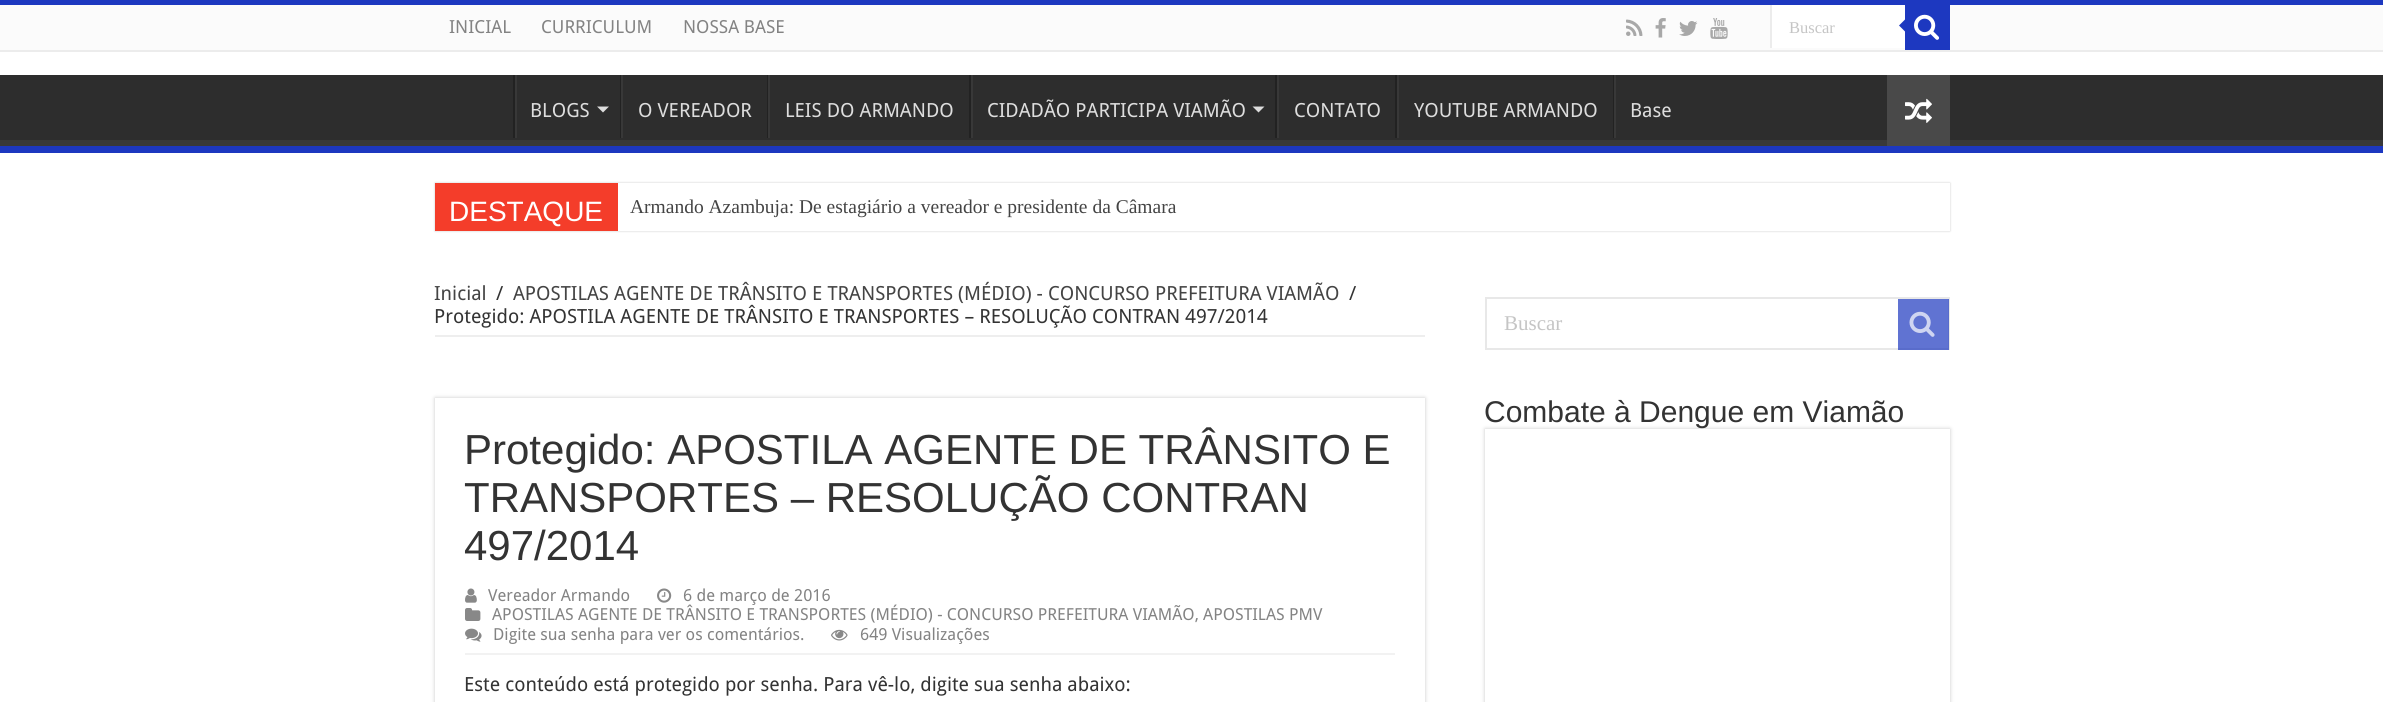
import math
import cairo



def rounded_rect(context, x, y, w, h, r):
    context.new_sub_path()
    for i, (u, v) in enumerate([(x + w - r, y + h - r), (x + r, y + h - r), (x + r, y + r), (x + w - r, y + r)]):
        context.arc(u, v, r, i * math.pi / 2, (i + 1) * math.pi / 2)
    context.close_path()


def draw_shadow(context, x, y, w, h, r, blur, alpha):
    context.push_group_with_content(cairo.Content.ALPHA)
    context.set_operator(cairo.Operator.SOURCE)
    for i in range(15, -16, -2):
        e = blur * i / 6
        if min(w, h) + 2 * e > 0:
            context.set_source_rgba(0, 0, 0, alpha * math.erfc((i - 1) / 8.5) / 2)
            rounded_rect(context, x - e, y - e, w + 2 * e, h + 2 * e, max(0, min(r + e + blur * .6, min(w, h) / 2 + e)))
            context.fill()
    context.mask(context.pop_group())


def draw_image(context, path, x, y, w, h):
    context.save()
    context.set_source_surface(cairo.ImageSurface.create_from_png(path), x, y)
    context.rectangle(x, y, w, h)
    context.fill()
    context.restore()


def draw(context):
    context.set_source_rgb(1, 1, 1)
    context.paint()
    context.set_source_rgb(29 / 255, 56 / 255, 192 / 255)
    context.rectangle(0, 0, 2383, 5)
    context.fill()
    context.set_source_rgb(251 / 255, 251 / 255, 251 / 255)
    context.rectangle(0, 5, 2383, 45)
    context.fill()
    context.set_source_rgb(236 / 255, 236 / 255, 236 / 255)
    context.rectangle(0, 50, 2383, 2)
    context.fill()
    draw_image(context, "images/1.png", 1626, 19, 17, 17)
    draw_image(context, "images/2.png", 1655, 18, 11, 20)
    draw_image(context, "images/3.png", 1679, 21, 19, 15)
    draw_image(context, "images/4.png", 1710, 18, 18, 21)
    context.set_source_rgb(1, 1, 1)
    context.rectangle(1772, 5, 133, 43)
    context.fill()
    context.set_source_rgb(236 / 255, 236 / 255, 236 / 255)
    context.rectangle(1770, 5, 2, 43)
    context.fill()
    context.set_source_rgb(29 / 255, 56 / 255, 192 / 255)
    context.rectangle(1905, 5, 45, 45)
    context.fill()
    draw_image(context, "images/5.png", 1914, 14, 25, 26)
    context.new_path()
    context.move_to(1905, 19.5)
    context.line_to(1905, 31.5)
    context.line_to(1899, 25.5)
    context.close_path()
    context.fill()
    context.set_source_rgb(45 / 255, 45 / 255, 45 / 255)
    context.rectangle(0, 75, 2383, 65)
    context.fill()
    context.save()
    context.rectangle(0, 75, 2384, 71)
    context.clip()
    context.set_source_rgb(57 / 255, 57 / 255, 57 / 255)
    context.set_fill_rule(cairo.FillRule.EVEN_ODD)
    context.new_path()
    context.move_to(-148, -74)
    context.line_to(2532, -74)
    context.line_to(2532, 294)
    context.line_to(-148, 294)
    context.close_path()
    context.move_to(-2, 66)
    context.line_to(2382, 66)
    context.curve_to(2383, 66, 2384, 67, 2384, 68)
    context.line_to(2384, 138)
    context.curve_to(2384, 139, 2383, 140, 2382, 140)
    context.line_to(-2, 140)
    context.curve_to(-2, 140, -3, 139, -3, 138)
    context.line_to(-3, 68)
    context.curve_to(-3, 67, -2, 66, -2, 66)
    context.close_path()
    context.fill()
    context.restore()
    context.set_source_rgb(29 / 255, 56 / 255, 192 / 255)
    context.rectangle(0, 146, 2383, 7)
    context.fill()
    context.set_source_rgb(34 / 255, 34 / 255, 34 / 255)
    context.rectangle(513, 75, 2, 63)
    context.fill()
    context.set_source_rgb(56 / 255, 56 / 255, 56 / 255)
    context.rectangle(515, 75, 2, 63)
    context.fill()
    context.set_source_rgb(221 / 255, 221 / 255, 221 / 255)
    context.new_path()
    context.move_to(597, 106.5)
    context.line_to(609, 106.5)
    context.line_to(603, 112.5)
    context.close_path()
    context.fill()
    context.set_source_rgb(34 / 255, 34 / 255, 34 / 255)
    context.rectangle(620, 75, 1, 63)
    context.fill()
    context.set_source_rgb(56 / 255, 56 / 255, 56 / 255)
    context.rectangle(621, 75, 2, 63)
    context.fill()
    context.set_source_rgb(34 / 255, 34 / 255, 34 / 255)
    context.rectangle(767, 75, 1, 63)
    context.fill()
    context.set_source_rgb(56 / 255, 56 / 255, 56 / 255)
    context.rectangle(768, 75, 2, 63)
    context.fill()
    context.set_source_rgb(34 / 255, 34 / 255, 34 / 255)
    context.rectangle(969, 75, 2, 63)
    context.fill()
    context.set_source_rgb(56 / 255, 56 / 255, 56 / 255)
    context.rectangle(971, 75, 2, 63)
    context.fill()
    context.set_source_rgb(221 / 255, 221 / 255, 221 / 255)
    context.new_path()
    context.move_to(1252.5, 106.5)
    context.line_to(1264.5, 106.5)
    context.line_to(1258.5, 112.5)
    context.close_path()
    context.fill()
    context.set_source_rgb(34 / 255, 34 / 255, 34 / 255)
    context.rectangle(1275, 75, 2, 63)
    context.fill()
    context.set_source_rgb(56 / 255, 56 / 255, 56 / 255)
    context.rectangle(1277, 75, 2, 63)
    context.fill()
    context.set_source_rgb(34 / 255, 34 / 255, 34 / 255)
    context.rectangle(1395, 75, 2, 63)
    context.fill()
    context.set_source_rgb(56 / 255, 56 / 255, 56 / 255)
    context.rectangle(1397, 75, 2, 63)
    context.fill()
    context.set_source_rgb(34 / 255, 34 / 255, 34 / 255)
    context.rectangle(1613, 75, 1, 63)
    context.fill()
    context.set_source_rgb(56 / 255, 56 / 255, 56 / 255)
    context.rectangle(1614, 75, 2, 63)
    context.fill()
    context.set_source_rgb(73 / 255, 73 / 255, 73 / 255)
    context.rectangle(1887, 75, 63, 71)
    context.fill()
    draw_image(context, "images/6.png", 1905, 98, 27, 25)
    context.save()
    context.set_fill_rule(cairo.FillRule.EVEN_ODD)
    context.new_path()
    context.move_to(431, 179)
    context.line_to(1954, 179)
    context.line_to(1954, 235)
    context.line_to(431, 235)
    context.close_path()
    context.move_to(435, 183)
    context.line_to(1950, 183)
    context.line_to(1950, 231)
    context.line_to(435, 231)
    context.close_path()
    context.clip()
    context.set_source_rgb(202 / 255, 202 / 255, 202 / 255)
    draw_shadow(context, 435, 183, 1515, 48, 0, 1, 1)
    context.restore()
    context.set_source_rgb(244 / 255, 61 / 255, 42 / 255)
    context.rectangle(435, 183, 183, 48)
    context.fill()
    context.set_source_rgb(238 / 255, 238 / 255, 238 / 255)
    context.rectangle(435, 335, 990, 2)
    context.fill()
    context.save()
    context.set_fill_rule(cairo.FillRule.EVEN_ODD)
    context.new_path()
    context.move_to(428, 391)
    context.line_to(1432, 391)
    context.line_to(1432, 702)
    context.line_to(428, 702)
    context.close_path()
    context.move_to(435, 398)
    context.line_to(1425, 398)
    context.line_to(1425, 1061)
    context.line_to(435, 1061)
    context.close_path()
    context.clip()
    context.set_source_rgb(202 / 255, 202 / 255, 202 / 255)
    draw_shadow(context, 435, 398, 990, 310, 0, 2, 1)
    context.restore()
    context.set_source_rgb(242 / 255, 242 / 255, 242 / 255)
    context.rectangle(465, 653, 930, 2)
    context.fill()
    draw_image(context, "images/7.png", 465, 588, 12, 15)
    draw_image(context, "images/8.png", 657, 588, 15, 15)
    draw_image(context, "images/9.png", 465, 608, 16, 13)
    draw_image(context, "images/10.png", 465, 628, 17, 14)
    draw_image(context, "images/11.png", 831, 629, 17, 12)
    context.rectangle(1486, 298, 463, 51)
    context.set_source_rgb(232 / 255, 232 / 255, 232 / 255)
    context.stroke()
    context.set_source_rgba(29 / 255, 56 / 255, 192 / 255, 0.7)
    context.rectangle(1898, 299, 51, 51)
    context.fill()
    draw_image(context, "images/12.png", 1909, 311, 26, 26)
    context.save()
    context.set_fill_rule(cairo.FillRule.EVEN_ODD)
    context.new_path()
    context.move_to(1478, 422)
    context.line_to(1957, 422)
    context.line_to(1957, 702)
    context.line_to(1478, 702)
    context.close_path()
    context.move_to(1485, 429)
    context.line_to(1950, 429)
    context.line_to(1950, 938)
    context.line_to(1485, 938)
    context.close_path()
    context.clip()
    context.set_source_rgb(202 / 255, 202 / 255, 202 / 255)
    draw_shadow(context, 1485, 429, 465, 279, 0, 2, 1)
    context.restore()
    context.select_font_face("Droid Sans")
    context.set_font_size(18)
    context.set_source_rgb(131 / 255, 131 / 255, 131 / 255)
    context.move_to(449, 33)
    context.show_text("INICIAL")
    context.move_to(541, 33)
    context.show_text("CURRICULUM")
    context.move_to(683, 33)
    context.show_text("NOSSA BASE")
    context.select_font_face("Liberation Serif")
    context.set_font_size(16.5)
    context.set_source_rgb(197 / 255, 197 / 255, 197 / 255)
    context.move_to(1789, 33)
    context.show_text("Buscar")
    context.select_font_face("Droid Sans")
    context.set_font_size(19.5)
    context.set_source_rgb(221 / 255, 221 / 255, 221 / 255)
    context.move_to(530, 117)
    context.show_text("BLOGS")
    context.move_to(638, 117)
    context.show_text("O VEREADOR")
    context.move_to(785, 117)
    context.show_text("LEIS DO ARMANDO")
    context.move_to(987, 117)
    context.show_text("CIDADÃO PARTICIPA VIAMÃO")
    context.move_to(1294, 117)
    context.show_text("CONTATO")
    context.move_to(1414, 117)
    context.show_text("YOUTUBE ARMANDO")
    context.move_to(1630, 117)
    context.show_text("Base")
    context.select_font_face("Liberation Sans")
    context.set_font_size(28)
    context.set_source_rgb(1, 1, 1)
    context.move_to(449, 221)
    context.show_text("DESTAQUE")
    context.select_font_face("Liberation Serif")
    context.set_font_size(19.5)
    context.set_source_rgb(68 / 255, 68 / 255, 68 / 255)
    context.move_to(630, 213)
    context.show_text("Armando Azambuja: De estagiário a vereador e presidente da Câmara")
    context.select_font_face("Droid Sans")
    context.move_to(434, 300)
    context.show_text("Inicial")
    context.set_source_rgb(51 / 255, 51 / 255, 51 / 255)
    context.move_to(496, 300)
    context.show_text("/")
    context.set_source_rgb(68 / 255, 68 / 255, 68 / 255)
    context.move_to(513, 300)
    context.show_text("APOSTILAS AGENTE DE TRÂNSITO E TRANSPORTES (MÉDIO) - CONCURSO PREFEITURA VIAMÃO")
    context.set_source_rgb(51 / 255, 51 / 255, 51 / 255)
    context.move_to(1349, 300)
    context.show_text("/")
    context.move_to(434, 323)
    context.show_text("Protegido: APOSTILA AGENTE DE TRÂNSITO E TRANSPORTES – RESOLUÇÃO CONTRAN 497/2014")
    context.select_font_face("Liberation Sans")
    context.set_font_size(42)
    context.move_to(464, 464)
    context.show_text("Protegido: APOSTILA AGENTE DE TRÂNSITO E")
    context.move_to(464, 512)
    context.show_text("TRANSPORTES – RESOLUÇÃO CONTRAN")
    context.move_to(464, 560)
    context.show_text("497/2014")
    context.select_font_face("Droid Sans")
    context.set_font_size(16.58)
    context.set_source_rgb(131 / 255, 131 / 255, 131 / 255)
    context.move_to(488, 601)
    context.show_text("Vereador Armando")
    context.move_to(683, 601)
    context.show_text("6 de março de 2016")
    context.move_to(492, 620)
    context.show_text("APOSTILAS AGENTE DE TRÂNSITO E TRANSPORTES (MÉDIO) - CONCURSO PREFEITURA VIAMÃO, APOSTILAS PMV")
    context.move_to(493, 640)
    context.show_text("Digite sua senha para ver os comentários.")
    context.move_to(860, 640)
    context.show_text("649 Visualizações")
    context.set_font_size(19.5)
    context.set_source_rgb(51 / 255, 51 / 255, 51 / 255)
    context.move_to(464, 691)
    context.show_text("Este conteúdo está protegido por senha. Para vê-lo, digite sua senha abaixo:")
    context.select_font_face("Liberation Serif")
    context.set_font_size(21)
    context.set_source_rgb(197 / 255, 197 / 255, 197 / 255)
    context.move_to(1504, 330)
    context.show_text("Buscar")
    context.select_font_face("Liberation Sans")
    context.set_font_size(30)
    context.set_source_rgb(51 / 255, 51 / 255, 51 / 255)
    context.move_to(1484, 422)
    context.show_text("Combate à Dengue em Viamão")


surface = cairo.ImageSurface(cairo.Format.RGB24, 2383, 702)
context = cairo.Context(surface)
options = cairo.FontOptions()
options.set_hint_metrics(cairo.HintMetrics.OFF)
options.set_hint_style(cairo.HintStyle.NONE)
context.set_font_options(options)
context.set_miter_limit(4)
draw(context)
surface.write_to_png("out.png")
